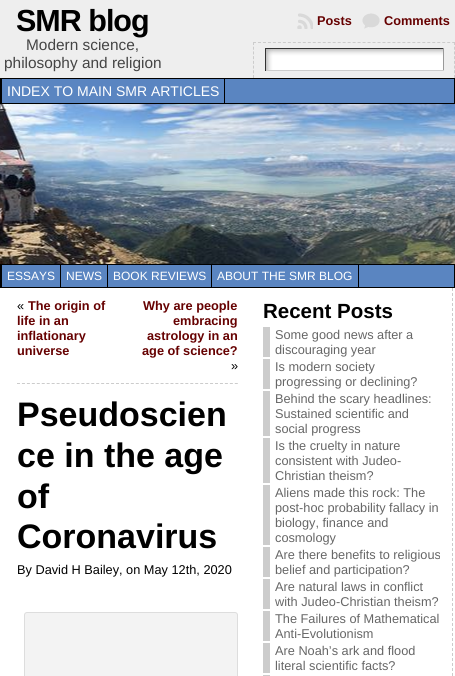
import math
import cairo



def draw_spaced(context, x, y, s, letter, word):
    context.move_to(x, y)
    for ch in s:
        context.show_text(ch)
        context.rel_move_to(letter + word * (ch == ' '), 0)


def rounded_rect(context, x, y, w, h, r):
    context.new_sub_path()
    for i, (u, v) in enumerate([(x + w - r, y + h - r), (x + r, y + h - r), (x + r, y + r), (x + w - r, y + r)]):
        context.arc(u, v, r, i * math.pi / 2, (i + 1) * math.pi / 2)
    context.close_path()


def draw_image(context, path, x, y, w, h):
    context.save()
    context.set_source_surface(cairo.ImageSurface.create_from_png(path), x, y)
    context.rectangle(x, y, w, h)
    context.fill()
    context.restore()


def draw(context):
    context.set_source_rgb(1, 1, 1)
    context.paint()
    context.set_source_rgb(238 / 255, 238 / 255, 238 / 255)
    context.rectangle(0, 0, 455, 78)
    context.fill()
    draw_image(context, "images/1.png", 297, 13, 16, 16)
    draw_image(context, "images/2.png", 362, 13, 18, 16)
    context.new_path()
    context.move_to(253, 42.5)
    context.line_to(455, 42.5)
    context.set_source_rgb(204 / 255, 204 / 255, 204 / 255)
    context.set_line_width(1)
    context.set_dash([3, 1.98])
    context.stroke()
    context.new_path()
    context.move_to(454.5, 42)
    context.line_to(454.5, 78)
    context.set_dash([3, 1.71])
    context.stroke()
    context.new_path()
    context.move_to(253.5, 42)
    context.line_to(253.5, 78)
    context.stroke()
    draw_image(context, "images/3.png", 266, 49, 177, 21)
    context.set_source_rgb(51 / 255, 51 / 255, 51 / 255)
    context.rectangle(265, 48, 179, 1)
    context.fill()
    context.set_source_rgb(153 / 255, 153 / 255, 153 / 255)
    context.rectangle(443, 48, 1, 23)
    context.fill()
    context.set_source_rgb(204 / 255, 204 / 255, 204 / 255)
    context.rectangle(265, 70, 179, 1)
    context.fill()
    context.set_source_rgb(51 / 255, 51 / 255, 51 / 255)
    context.rectangle(265, 48, 1, 23)
    context.fill()
    context.set_source_rgb(90 / 255, 133 / 255, 193 / 255)
    context.rectangle(225, 79, 229, 24)
    context.fill()
    context.rectangle(0.5, 78.5, 454, 25)
    context.set_source_rgb(0, 0, 0)
    context.set_dash([])
    context.stroke()
    context.set_source_rgb(90 / 255, 133 / 255, 193 / 255)
    context.rectangle(1.5, 78.5, 223, 25)
    context.fill_preserve()
    context.set_source_rgb(0, 0, 0)
    context.stroke()
    draw_image(context, "images/4.png", 0, 104, 455, 160)
    context.set_source_rgb(90 / 255, 133 / 255, 193 / 255)
    context.rectangle(359, 265, 95, 22)
    context.fill()
    context.rectangle(0.5, 264.5, 454, 23)
    context.set_source_rgb(0, 0, 0)
    context.stroke()
    context.set_source_rgb(90 / 255, 133 / 255, 193 / 255)
    context.rectangle(1.5, 264.5, 59, 23)
    context.fill_preserve()
    context.set_source_rgb(0, 0, 0)
    context.stroke()
    context.set_source_rgb(90 / 255, 133 / 255, 193 / 255)
    context.rectangle(60.5, 264.5, 47, 23)
    context.fill_preserve()
    context.set_source_rgb(0, 0, 0)
    context.stroke()
    context.set_source_rgb(90 / 255, 133 / 255, 193 / 255)
    context.rectangle(107.5, 264.5, 104, 23)
    context.fill_preserve()
    context.set_source_rgb(0, 0, 0)
    context.stroke()
    context.set_source_rgb(90 / 255, 133 / 255, 193 / 255)
    context.rectangle(211.5, 264.5, 147, 23)
    context.fill_preserve()
    context.set_source_rgb(0, 0, 0)
    context.stroke()
    context.new_path()
    context.move_to(17, 383.5)
    context.line_to(238, 383.5)
    context.set_source_rgb(204 / 255, 204 / 255, 204 / 255)
    context.set_dash([3, 1.95])
    context.stroke()
    context.set_source_rgb(243 / 255, 243 / 255, 243 / 255)
    rounded_rect(context, 24.5, 612.5, 213, 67, 2.5)
    context.fill_preserve()
    context.set_source_rgb(221 / 255, 221 / 255, 221 / 255)
    context.set_dash([])
    context.stroke()
    context.new_path()
    context.move_to(452.5, 288)
    context.line_to(452.5, 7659)
    context.set_source_rgb(204 / 255, 204 / 255, 204 / 255)
    context.set_dash([3, 2])
    context.stroke()
    context.rectangle(263, 327, 7, 30)
    context.fill()
    context.rectangle(263, 359, 7, 30)
    context.fill()
    context.rectangle(263, 391, 7, 45)
    context.fill()
    context.rectangle(263, 438, 7, 45)
    context.fill()
    context.rectangle(263, 485, 7, 60)
    context.fill()
    context.rectangle(263, 547, 7, 30)
    context.fill()
    context.rectangle(263, 579, 7, 30)
    context.fill()
    context.rectangle(263, 611, 7, 30)
    context.fill()
    context.rectangle(263, 643, 7, 30)
    context.fill()
    context.rectangle(263, 675, 7, 1)
    context.fill()
    context.select_font_face("Liberation Sans", cairo.FontSlant.NORMAL, cairo.FontWeight.BOLD)
    context.set_font_size(30.5)
    context.set_source_rgb(0, 0, 0)
    draw_spaced(context, 16, 31, "SMR blog", -1, 0)
    context.select_font_face("Liberation Sans")
    context.set_font_size(15.4)
    context.set_source_rgb(68 / 255, 68 / 255, 68 / 255)
    context.move_to(26, 50)
    context.show_text("Modern science,")
    context.move_to(4, 68)
    context.show_text("philosophy and religion")
    context.select_font_face("Liberation Sans", cairo.FontSlant.NORMAL, cairo.FontWeight.BOLD)
    context.set_font_size(12.75)
    context.set_source_rgb(102 / 255, 1 / 255, 1 / 255)
    context.move_to(317, 25)
    context.show_text("Posts")
    context.move_to(384, 25)
    context.show_text("Comments")
    context.select_font_face("Liberation Sans")
    context.set_font_size(14)
    context.set_source_rgb(1, 1, 1)
    context.move_to(7, 96)
    context.show_text("INDEX TO MAIN SMR ARTICLES")
    context.set_font_size(12)
    context.move_to(7, 280)
    context.show_text("ESSAYS")
    context.move_to(66, 280)
    context.show_text("NEWS")
    context.move_to(113, 280)
    context.show_text("BOOK REVIEWS")
    context.move_to(217, 280)
    context.show_text("ABOUT THE SMR BLOG")
    context.set_font_size(12.75)
    context.set_source_rgb(0, 0, 0)
    context.move_to(17, 310)
    context.show_text("«")
    context.select_font_face("Liberation Sans", cairo.FontSlant.NORMAL, cairo.FontWeight.BOLD)
    context.set_source_rgb(102 / 255, 1 / 255, 1 / 255)
    context.move_to(28, 310)
    context.show_text("The origin of")
    context.move_to(17, 325)
    context.show_text("life in an")
    context.move_to(17, 340)
    context.show_text("inflationary")
    context.move_to(17, 355)
    context.show_text("universe")
    context.move_to(143, 310)
    context.show_text("Why are people")
    context.move_to(173, 325)
    context.show_text("embracing")
    context.move_to(147, 340)
    context.show_text("astrology in an")
    context.move_to(142, 355)
    context.show_text("age of science?")
    context.select_font_face("Liberation Sans")
    context.set_source_rgb(0, 0, 0)
    context.move_to(231, 370)
    context.show_text("»")
    context.select_font_face("Liberation Sans", cairo.FontSlant.NORMAL, cairo.FontWeight.BOLD)
    context.set_font_size(34)
    context.move_to(17, 426)
    context.show_text("Pseudoscien")
    context.move_to(17, 467)
    context.show_text("ce in the age")
    context.move_to(17, 508)
    context.show_text("of")
    context.move_to(17, 548)
    context.show_text("Coronavirus")
    context.select_font_face("Liberation Sans")
    context.set_font_size(12.75)
    context.move_to(17, 574)
    context.show_text("By David H Bailey, on May 12th, 2020")
    context.select_font_face("Liberation Sans", cairo.FontSlant.NORMAL, cairo.FontWeight.BOLD)
    context.set_font_size(20.5)
    context.move_to(263, 318)
    context.show_text("Recent Posts")
    context.select_font_face("Liberation Sans")
    context.set_font_size(12.75)
    context.set_source_rgb(102 / 255, 102 / 255, 102 / 255)
    context.move_to(275, 339)
    context.show_text("Some good news after a")
    context.move_to(275, 354)
    context.show_text("discouraging year")
    context.move_to(275, 371)
    context.show_text("Is modern society")
    context.move_to(275, 386)
    context.show_text("progressing or declining?")
    context.move_to(275, 403)
    context.show_text("Behind the scary headlines:")
    context.move_to(275, 418)
    context.show_text("Sustained scientific and")
    context.move_to(275, 433)
    context.show_text("social progress")
    context.move_to(275, 450)
    context.show_text("Is the cruelty in nature")
    context.move_to(275, 465)
    context.show_text("consistent with Judeo-")
    context.move_to(275, 480)
    context.show_text("Christian theism?")
    context.move_to(275, 497)
    context.show_text("Aliens made this rock: The")
    context.move_to(275, 512)
    context.show_text("post-hoc probability fallacy in")
    context.move_to(275, 527)
    context.show_text("biology, finance and")
    context.move_to(275, 542)
    context.show_text("cosmology")
    context.move_to(275, 559)
    context.show_text("Are there benefits to religious")
    context.move_to(275, 574)
    context.show_text("belief and participation?")
    context.move_to(275, 591)
    context.show_text("Are natural laws in conflict")
    context.move_to(275, 606)
    context.show_text("with Judeo-Christian theism?")
    context.move_to(275, 623)
    context.show_text("The Failures of Mathematical")
    context.move_to(275, 638)
    context.show_text("Anti-Evolutionism")
    context.move_to(275, 655)
    context.show_text("Are Noah’s ark and flood")
    context.move_to(275, 670)
    context.show_text("literal scientific facts?")


surface = cairo.ImageSurface(cairo.Format.RGB24, 455, 676)
context = cairo.Context(surface)
options = cairo.FontOptions()
options.set_hint_metrics(cairo.HintMetrics.OFF)
options.set_hint_style(cairo.HintStyle.NONE)
context.set_font_options(options)
context.set_miter_limit(4)
draw(context)
surface.write_to_png("out.png")
